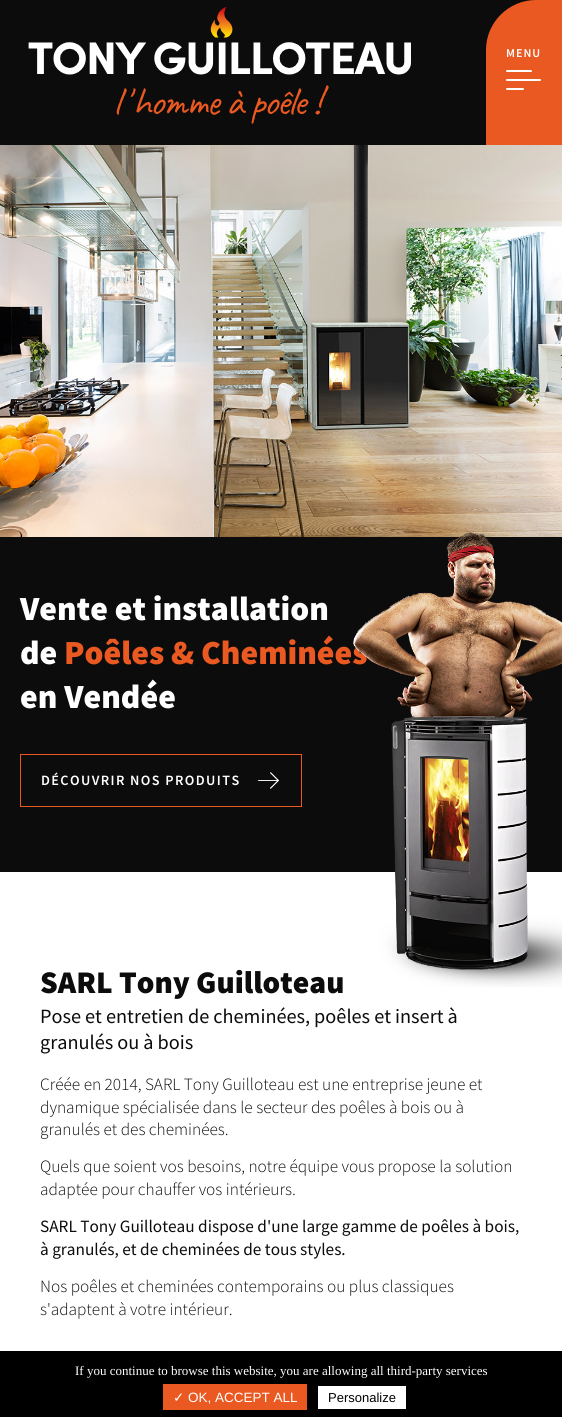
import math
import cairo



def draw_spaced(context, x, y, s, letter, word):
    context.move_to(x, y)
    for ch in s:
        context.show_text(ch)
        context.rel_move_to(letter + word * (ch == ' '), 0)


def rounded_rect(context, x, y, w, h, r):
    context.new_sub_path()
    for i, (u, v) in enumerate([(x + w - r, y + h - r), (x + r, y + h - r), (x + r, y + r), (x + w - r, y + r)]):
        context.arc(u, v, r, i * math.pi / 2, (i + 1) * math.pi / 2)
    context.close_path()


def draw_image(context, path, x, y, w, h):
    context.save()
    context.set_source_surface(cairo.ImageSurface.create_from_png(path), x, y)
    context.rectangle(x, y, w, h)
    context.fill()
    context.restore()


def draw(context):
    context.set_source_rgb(1, 1, 1)
    context.paint()
    context.set_source_rgb(12 / 255, 12 / 255, 12 / 255)
    context.rectangle(0, 0, 536, 145)
    context.fill()
    draw_image(context, "images/1.png", 28, 6, 383, 118)
    context.set_source_rgb(234 / 255, 89 / 255, 33 / 255)
    context.new_path()
    context.move_to(536, 0)
    context.line_to(562, 0)
    context.line_to(562, 145)
    context.line_to(486, 145)
    context.line_to(486, 50)
    context.curve_to(486, 22.5, 508.5, 0, 536, 0)
    context.close_path()
    context.fill()
    context.set_source_rgb(1, 1, 1)
    rounded_rect(context, 506, 79, 35, 2, 1)
    context.fill()
    rounded_rect(context, 506, 70, 26, 2, 1)
    context.fill()
    rounded_rect(context, 506, 88, 18, 2, 1)
    context.fill()
    draw_image(context, "images/2.png", 0, 145, 562, 392)
    context.set_source_rgb(12 / 255, 12 / 255, 12 / 255)
    context.rectangle(0, 537, 562, 335)
    context.fill()
    context.rectangle(20.5, 754.5, 281, 52)
    context.set_source_rgb(234 / 255, 89 / 255, 33 / 255)
    context.set_line_width(1)
    context.stroke()
    draw_image(context, "images/3.png", 258, 772, 21, 17)
    context.set_source_rgb(0, 0, 0)
    context.rectangle(0, 1351, 562, 66)
    context.fill()
    context.set_source_rgb(234 / 255, 89 / 255, 33 / 255)
    context.rectangle(163, 1384, 144, 26)
    context.fill()
    context.set_source_rgb(1, 1, 1)
    context.rectangle(318, 1386, 88, 23)
    context.fill()
    context.select_font_face("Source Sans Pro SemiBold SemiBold")
    context.set_font_size(12)
    draw_spaced(context, 506, 57, "MENU", 1, 0)
    context.select_font_face("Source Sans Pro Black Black")
    context.set_font_size(33.75)
    context.move_to(20, 620)
    context.show_text("Vente et installation")
    context.move_to(20, 664)
    context.show_text("de")
    context.set_source_rgb(234 / 255, 89 / 255, 33 / 255)
    context.move_to(64, 664)
    context.show_text("Poêles & Cheminées")
    context.set_source_rgb(1, 1, 1)
    context.move_to(20, 708)
    context.show_text("en Vendée")
    context.select_font_face("Source Sans Pro SemiBold SemiBold")
    context.set_font_size(14.25)
    draw_spaced(context, 41, 785, "DÉCOUVRIR NOS PRODUITS", 1.4, 0)
    draw_image(context, "images/4.png", 353, 532, 209, 455)
    context.select_font_face("Source Sans Pro Black Black")
    context.set_font_size(31.5)
    context.set_source_rgb(12 / 255, 12 / 255, 12 / 255)
    context.move_to(40, 993)
    context.show_text("SARL Tony Guilloteau")
    context.select_font_face("Source Sans Pro")
    context.set_font_size(20.25)
    context.move_to(40, 1023)
    context.show_text("Pose et entretien de cheminées, poêles et insert à")
    context.move_to(40, 1049)
    context.show_text("granulés ou à bois")
    context.select_font_face("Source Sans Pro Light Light")
    context.set_font_size(17.25)
    context.move_to(40, 1090)
    context.show_text("Créée en 2014, SARL Tony Guilloteau est une entreprise jeune et")
    context.move_to(40, 1113)
    context.show_text("dynamique spécialisée dans le secteur des poêles à bois ou à")
    context.move_to(40, 1135)
    context.show_text("granulés et des cheminées.")
    context.move_to(40, 1172)
    context.show_text("Quels que soient vos besoins, notre équipe vous propose la solution")
    context.move_to(40, 1195)
    context.show_text("adaptée pour chauffer vos intérieurs.")
    context.select_font_face("Source Sans Pro")
    context.move_to(40, 1232)
    context.show_text("SARL Tony Guilloteau dispose d'une large gamme de poêles à bois,")
    context.move_to(40, 1255)
    context.show_text("à granulés, et de cheminées de tous styles.")
    context.select_font_face("Source Sans Pro Light Light")
    context.move_to(40, 1292)
    context.show_text("Nos poêles et cheminées contemporains ou plus classiques")
    context.move_to(40, 1315)
    context.show_text("s'adaptent à votre intérieur.")
    context.select_font_face("Liberation Serif")
    context.set_font_size(13)
    context.set_source_rgb(1, 1, 1)
    context.move_to(75, 1375)
    context.show_text("If you continue to browse this website, you are allowing all third-party services")
    context.select_font_face("DejaVu Sans")
    context.set_font_size(13.5)
    context.move_to(173, 1402)
    context.show_text("✓")
    context.select_font_face("Liberation Sans")
    context.move_to(188, 1402)
    context.show_text("OK, ACCEPT ALL")
    context.set_font_size(13)
    context.set_source_rgb(0, 0, 0)
    context.move_to(328, 1402)
    context.show_text("Personalize")


surface = cairo.ImageSurface(cairo.Format.RGB24, 562, 1417)
context = cairo.Context(surface)
options = cairo.FontOptions()
options.set_hint_metrics(cairo.HintMetrics.OFF)
options.set_hint_style(cairo.HintStyle.NONE)
context.set_font_options(options)
context.set_miter_limit(4)
draw(context)
surface.write_to_png("out.png")
